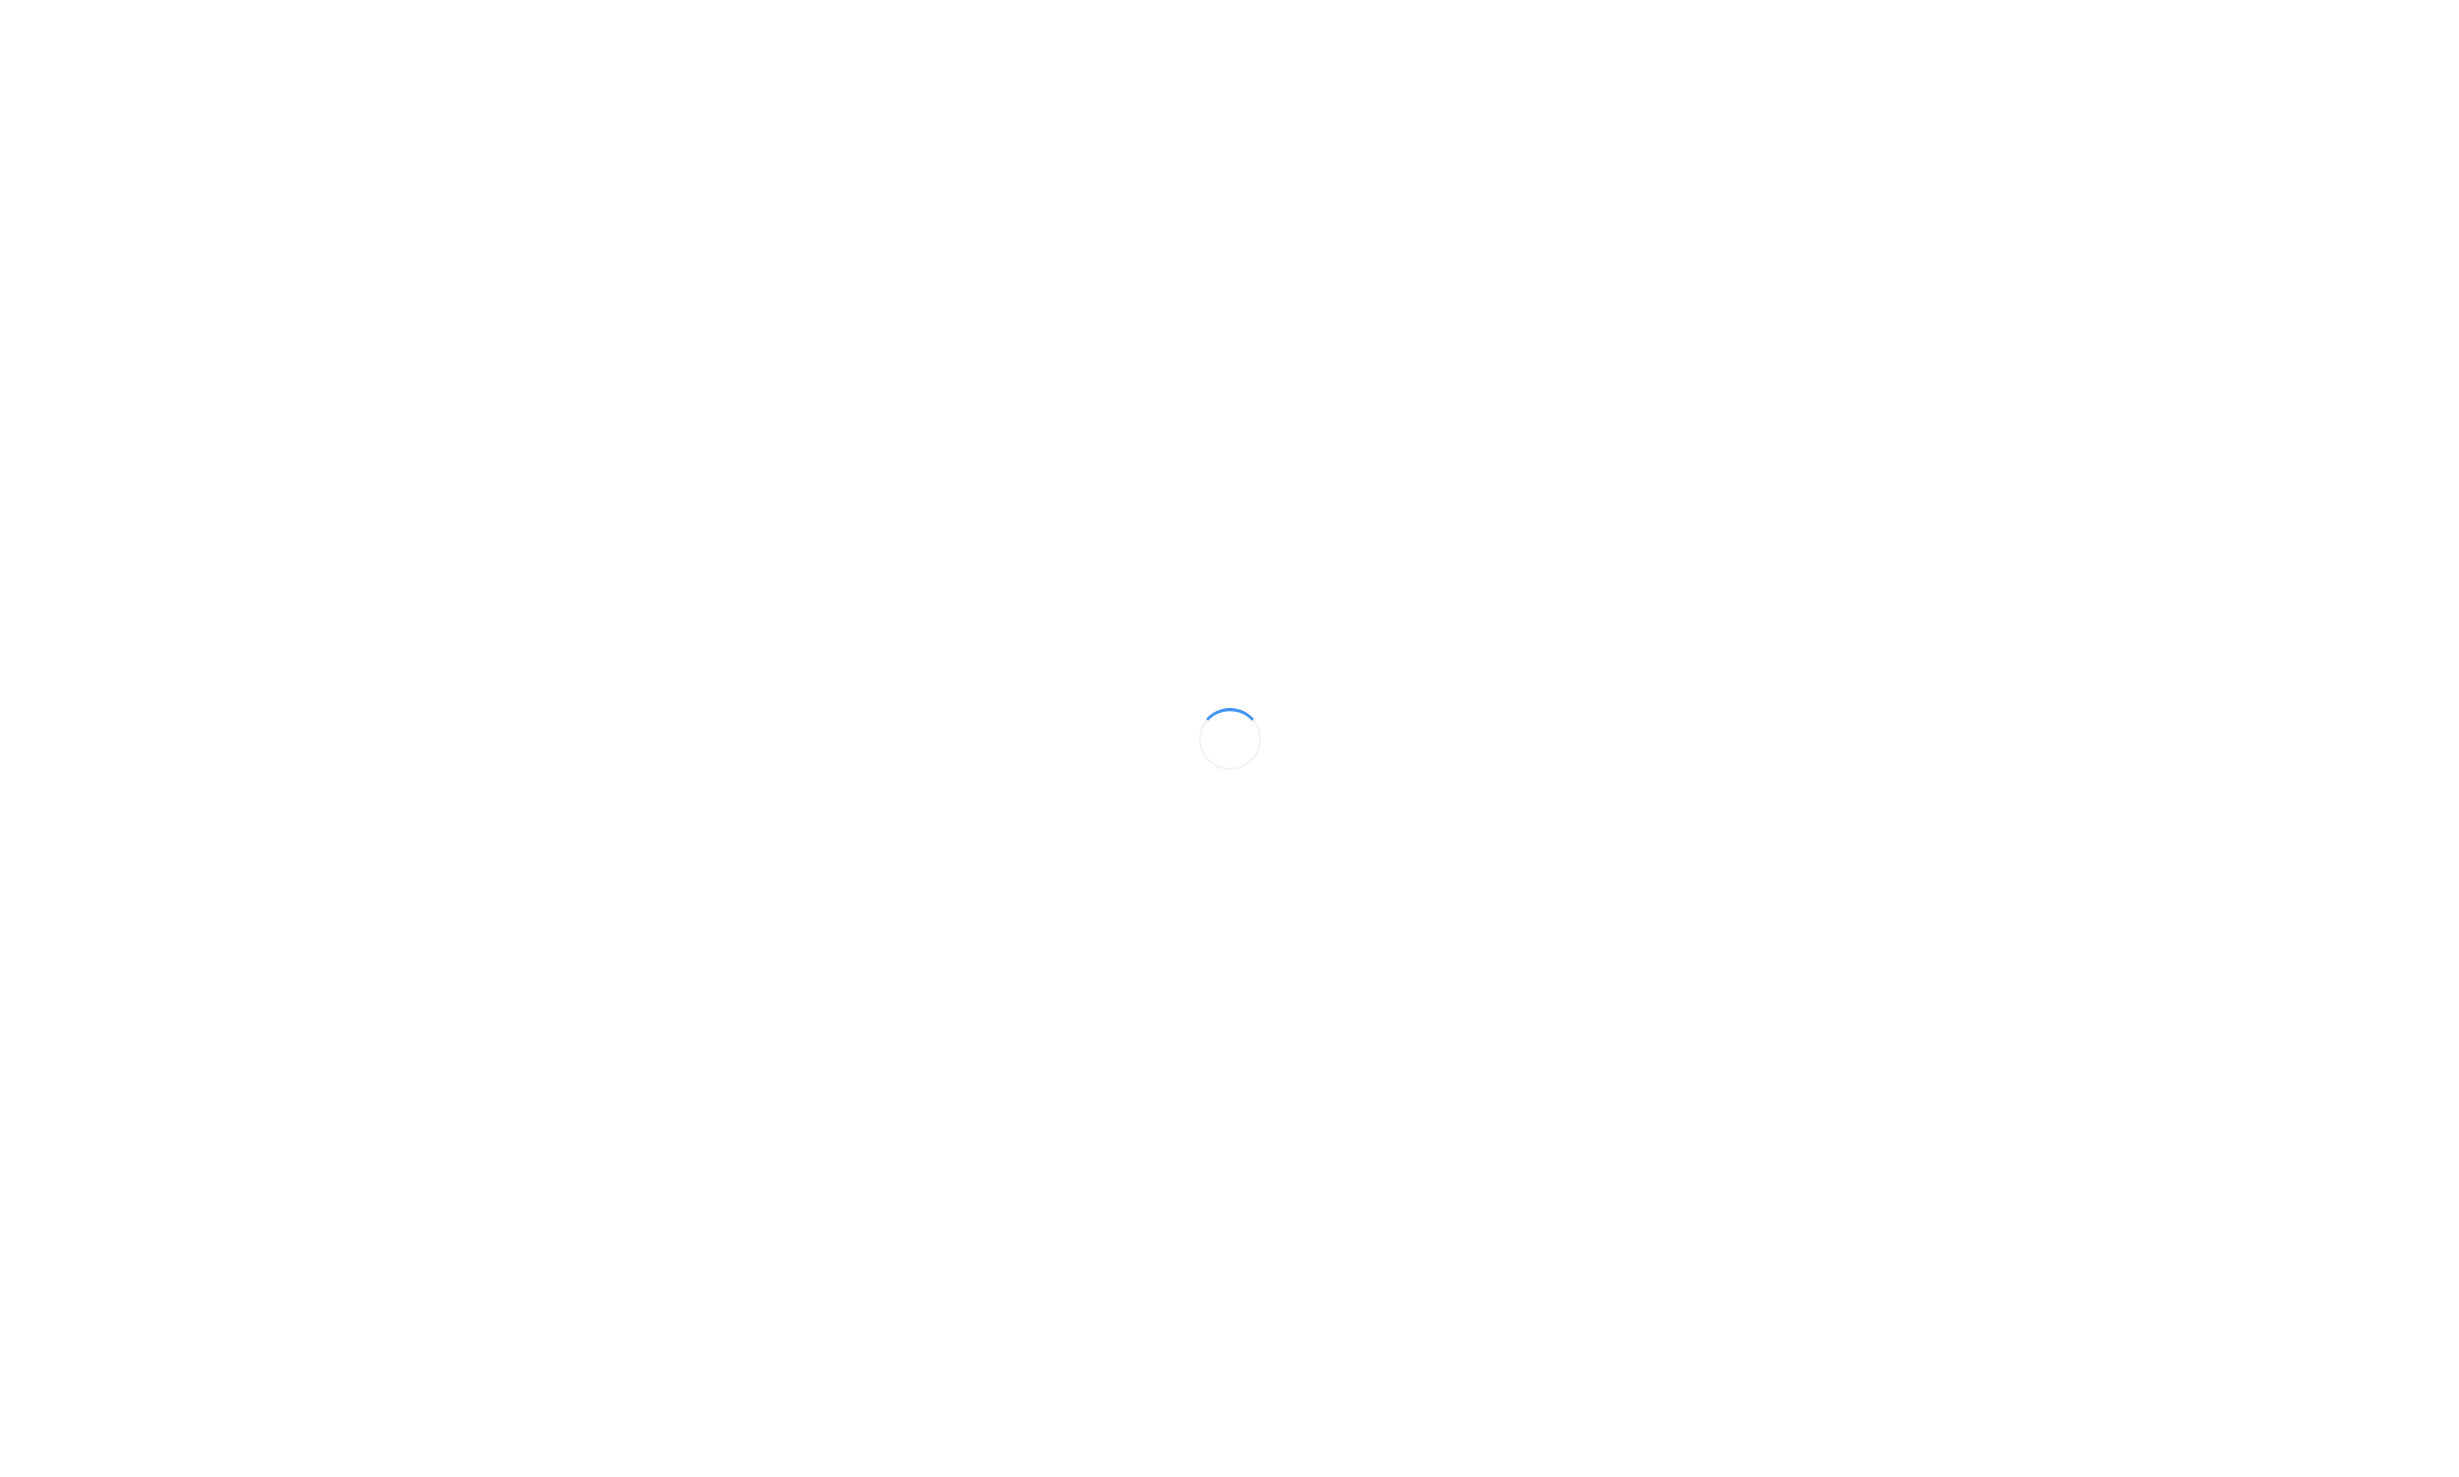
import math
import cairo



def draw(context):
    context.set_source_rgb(1, 1, 1)
    context.paint()
    context.set_source_rgb(66 / 255, 149 / 255, 245 / 255)
    context.new_path()
    context.move_to(1230, 708)
    context.curve_to(1221, 708, 1212, 712, 1206, 719)
    context.line_to(1208, 721)
    context.curve_to(1219, 708, 1241, 708, 1252, 721)
    context.line_to(1254, 719)
    context.curve_to(1248, 712, 1239, 708, 1230, 708)
    context.close_path()
    context.fill()
    context.set_source_rgb(243 / 255, 243 / 255, 243 / 255)
    context.new_path()
    context.move_to(1254, 719)
    context.curve_to(1264, 731, 1263, 750, 1252, 761)
    context.line_to(1251, 759)
    context.curve_to(1261, 749, 1262, 732, 1252, 721)
    context.close_path()
    context.fill()
    context.new_path()
    context.move_to(1252, 761)
    context.curve_to(1240, 773, 1220, 773, 1208, 761)
    context.line_to(1209, 759)
    context.curve_to(1221, 771, 1239, 771, 1251, 759)
    context.close_path()
    context.fill()
    context.new_path()
    context.move_to(1206, 719)
    context.curve_to(1196, 731, 1197, 750, 1208, 761)
    context.line_to(1209, 759)
    context.curve_to(1199, 749, 1198, 732, 1208, 721)
    context.close_path()
    context.fill()


surface = cairo.ImageSurface(cairo.Format.RGB24, 2459, 1477)
context = cairo.Context(surface)
options = cairo.FontOptions()
options.set_hint_metrics(cairo.HintMetrics.OFF)
options.set_hint_style(cairo.HintStyle.NONE)
context.set_font_options(options)
context.set_miter_limit(4)
draw(context)
surface.write_to_png("out.png")
